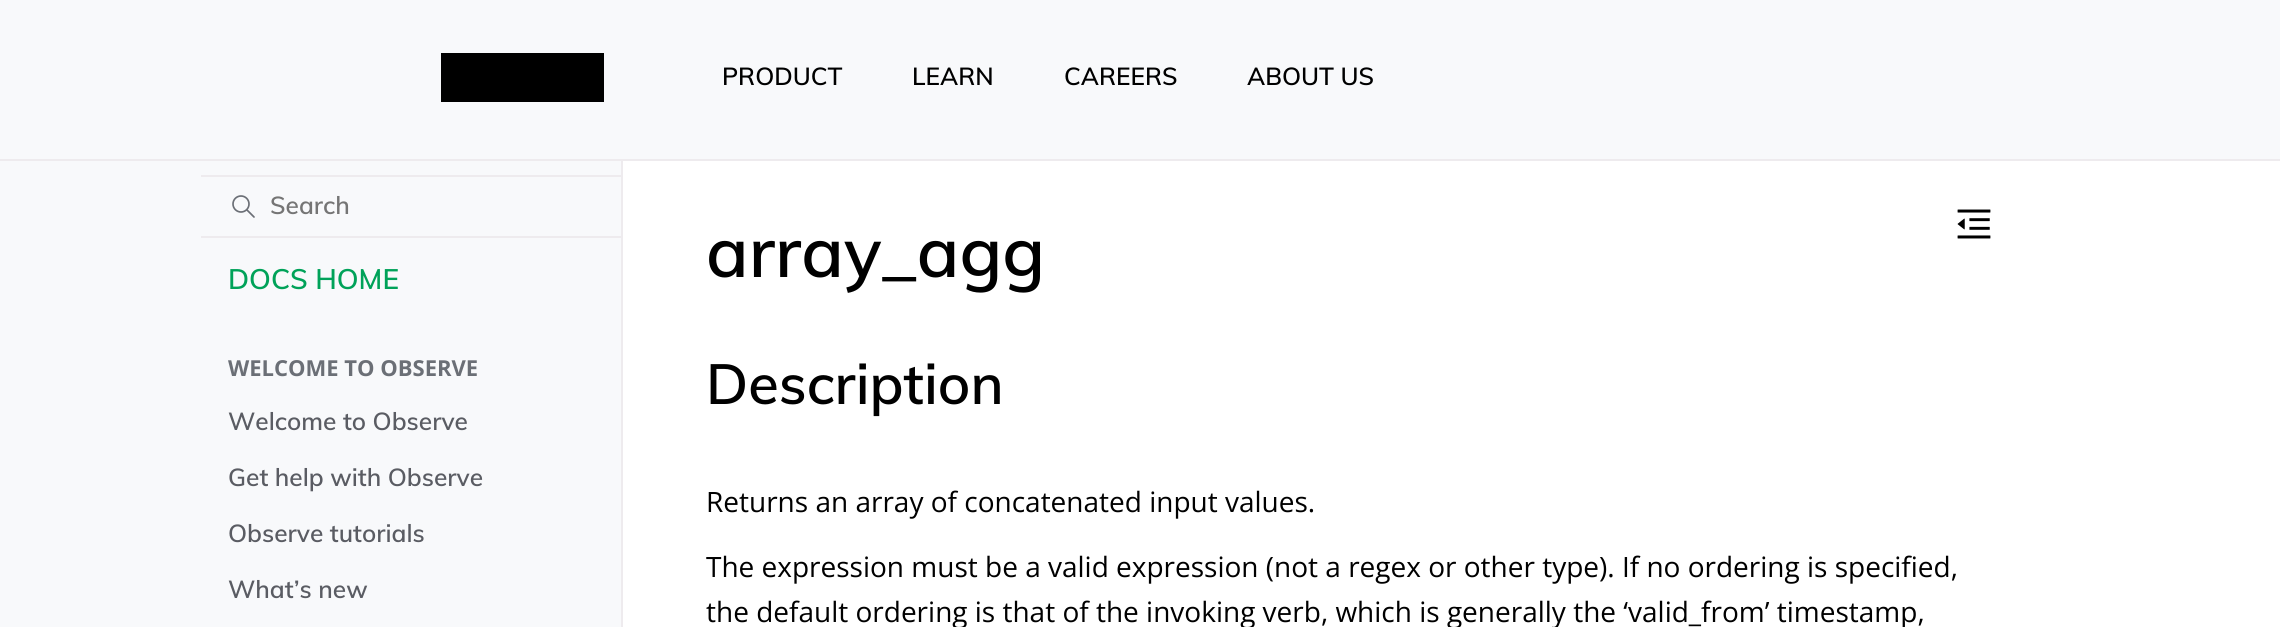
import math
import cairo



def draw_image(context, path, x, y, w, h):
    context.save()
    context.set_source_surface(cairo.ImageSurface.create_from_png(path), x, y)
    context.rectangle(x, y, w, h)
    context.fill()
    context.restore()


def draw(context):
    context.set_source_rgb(1, 1, 1)
    context.paint()
    context.set_source_rgb(248 / 255, 249 / 255, 251 / 255)
    context.rectangle(0, 0, 2280, 159)
    context.fill()
    context.set_source_rgb(238 / 255, 235 / 255, 238 / 255)
    context.rectangle(0, 159, 2280, 2)
    context.fill()
    context.set_source_rgb(0, 0, 0)
    context.rectangle(441, 53, 163, 49)
    context.fill()
    context.set_source_rgb(248 / 255, 249 / 255, 251 / 255)
    context.rectangle(0, 161, 621, 466)
    context.fill()
    context.set_source_rgb(238 / 255, 235 / 255, 238 / 255)
    context.rectangle(621, 161, 2, 466)
    context.fill()
    context.arc(241, 204, 8, 0, 2 * math.pi)
    context.set_source_rgb(107 / 255, 111 / 255, 118 / 255)
    context.set_line_width(1.7)
    context.stroke()
    context.new_path()
    context.move_to(254, 217)
    context.line_to(247, 210)
    context.set_line_cap(cairo.LineCap.ROUND)
    context.set_line_join(cairo.LineJoin.ROUND)
    context.stroke()
    context.set_source_rgb(238 / 255, 235 / 255, 238 / 255)
    context.rectangle(201, 175, 420, 2)
    context.fill()
    context.rectangle(201, 236, 420, 2)
    context.fill()
    draw_image(context, "images/1.png", 1957, 209, 34, 30)
    context.select_font_face("Muli SemiBold")
    context.set_font_size(24.5)
    context.set_source_rgb(0, 0, 0)
    context.move_to(722, 85)
    context.show_text("PRODUCT")
    context.move_to(912, 85)
    context.show_text("LEARN")
    context.move_to(1064, 85)
    context.show_text("CAREERS")
    context.move_to(1247, 85)
    context.show_text("ABOUT US")
    context.set_source_rgb(117 / 255, 117 / 255, 117 / 255)
    context.move_to(270, 214)
    context.show_text("Search")
    context.set_font_size(28)
    context.set_source_rgb(0, 162 / 255, 89 / 255)
    context.move_to(228, 289)
    context.show_text("DOCS HOME")
    context.select_font_face("Open Sans", cairo.FontSlant.NORMAL, cairo.FontWeight.BOLD)
    context.set_font_size(22)
    context.set_source_rgb(107 / 255, 111 / 255, 118 / 255)
    context.move_to(228, 376)
    context.show_text("WELCOME TO OBSERVE")
    context.select_font_face("Muli SemiBold")
    context.set_font_size(24.5)
    context.set_source_rgb(90 / 255, 92 / 255, 99 / 255)
    context.move_to(228, 430)
    context.show_text("Welcome to Observe")
    context.move_to(228, 486)
    context.show_text("Get help with Observe")
    context.move_to(228, 542)
    context.show_text("Observe tutorials")
    context.move_to(228, 598)
    context.show_text("What’s new")
    context.set_font_size(70)
    context.set_source_rgb(0, 0, 0)
    context.move_to(706, 277)
    context.show_text("array_agg")
    context.set_font_size(56)
    context.move_to(706, 404)
    context.show_text("Description")
    context.select_font_face("Open Sans")
    context.set_font_size(28)
    context.move_to(706, 512)
    context.show_text("Returns an array of concatenated input values.")
    context.move_to(706, 577)
    context.show_text("The expression must be a valid expression (not a regex or other type). If no ordering is specified,")
    context.move_to(706, 622)
    context.show_text("the default ordering is that of the invoking verb, which is generally the ‘valid_from’ timestamp,")


surface = cairo.ImageSurface(cairo.Format.RGB24, 2280, 627)
context = cairo.Context(surface)
options = cairo.FontOptions()
options.set_hint_metrics(cairo.HintMetrics.OFF)
options.set_hint_style(cairo.HintStyle.NONE)
context.set_font_options(options)
context.set_miter_limit(4)
draw(context)
surface.write_to_png("out.png")
